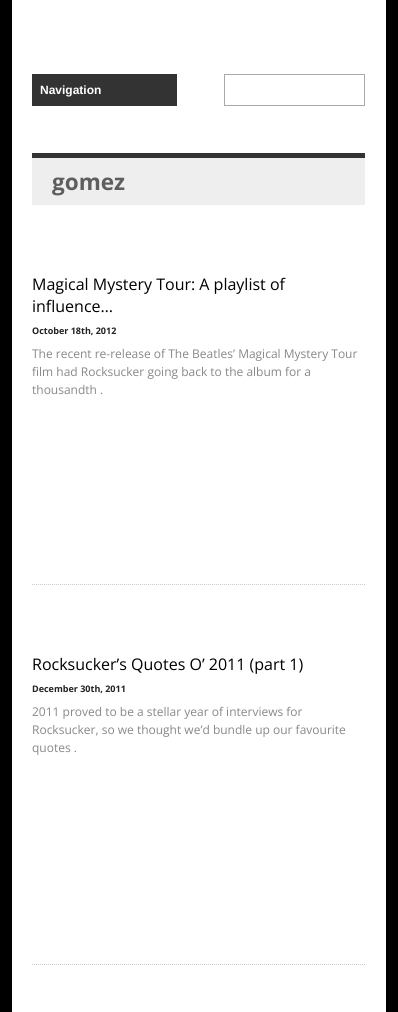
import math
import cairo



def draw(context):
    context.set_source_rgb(0, 0, 0)
    context.paint()
    context.set_source_rgb(1, 1, 1)
    context.rectangle(12, 0, 374, 1012)
    context.fill()
    context.set_source_rgb(51 / 255, 51 / 255, 51 / 255)
    context.rectangle(32, 74, 145, 32)
    context.fill()
    context.rectangle(224.5, 74.5, 140, 31)
    context.set_source_rgb(170 / 255, 170 / 255, 170 / 255)
    context.set_line_width(1)
    context.stroke()
    context.set_source_rgb(238 / 255, 238 / 255, 238 / 255)
    context.rectangle(32, 158, 333, 47)
    context.fill()
    context.set_source_rgb(51 / 255, 51 / 255, 51 / 255)
    context.rectangle(32, 153, 333, 5)
    context.fill()
    context.new_path()
    context.move_to(32, 584.5)
    context.line_to(366, 584.5)
    context.set_source_rgb(204 / 255, 204 / 255, 204 / 255)
    context.set_dash([1, 1])
    context.stroke()
    context.new_path()
    context.move_to(32, 964.5)
    context.line_to(366, 964.5)
    context.stroke()
    context.select_font_face("Liberation Sans", cairo.FontSlant.NORMAL, cairo.FontWeight.BOLD)
    context.set_font_size(12)
    context.set_source_rgb(1, 1, 1)
    context.move_to(40, 94)
    context.show_text("Navigation")
    context.select_font_face("Open Sans", cairo.FontSlant.NORMAL, cairo.FontWeight.BOLD)
    context.set_font_size(22.5)
    context.set_source_rgb(94 / 255, 94 / 255, 94 / 255)
    context.move_to(52, 190)
    context.show_text("gomez")
    context.select_font_face("Open Sans")
    context.set_font_size(16)
    context.set_source_rgb(0, 0, 0)
    context.move_to(32, 290)
    context.show_text("Magical Mystery Tour: A playlist of")
    context.move_to(32, 312)
    context.show_text("influence…")
    context.select_font_face("Open Sans", cairo.FontSlant.NORMAL, cairo.FontWeight.BOLD)
    context.set_font_size(9)
    context.set_source_rgb(34 / 255, 34 / 255, 34 / 255)
    context.move_to(32, 334)
    context.show_text("October 18th, 2012")
    context.select_font_face("Open Sans")
    context.set_font_size(12)
    context.set_source_rgb(136 / 255, 136 / 255, 136 / 255)
    context.move_to(32, 358)
    context.show_text("The recent re-release of The Beatles’ Magical Mystery Tour")
    context.move_to(32, 376)
    context.show_text("film had Rocksucker going back to the album for a")
    context.move_to(32, 394)
    context.show_text("thousandth .")
    context.set_font_size(16)
    context.set_source_rgb(0, 0, 0)
    context.move_to(32, 670)
    context.show_text("Rocksucker’s Quotes O’ 2011 (part 1)")
    context.select_font_face("Open Sans", cairo.FontSlant.NORMAL, cairo.FontWeight.BOLD)
    context.set_font_size(9)
    context.set_source_rgb(34 / 255, 34 / 255, 34 / 255)
    context.move_to(32, 692)
    context.show_text("December 30th, 2011")
    context.select_font_face("Open Sans")
    context.set_font_size(12)
    context.set_source_rgb(136 / 255, 136 / 255, 136 / 255)
    context.move_to(32, 716)
    context.show_text("2011 proved to be a stellar year of interviews for")
    context.move_to(32, 734)
    context.show_text("Rocksucker, so we thought we’d bundle up our favourite")
    context.move_to(32, 752)
    context.show_text("quotes .")


surface = cairo.ImageSurface(cairo.Format.RGB24, 398, 1012)
context = cairo.Context(surface)
options = cairo.FontOptions()
options.set_hint_metrics(cairo.HintMetrics.OFF)
options.set_hint_style(cairo.HintStyle.NONE)
context.set_font_options(options)
context.set_miter_limit(4)
draw(context)
surface.write_to_png("out.png")
